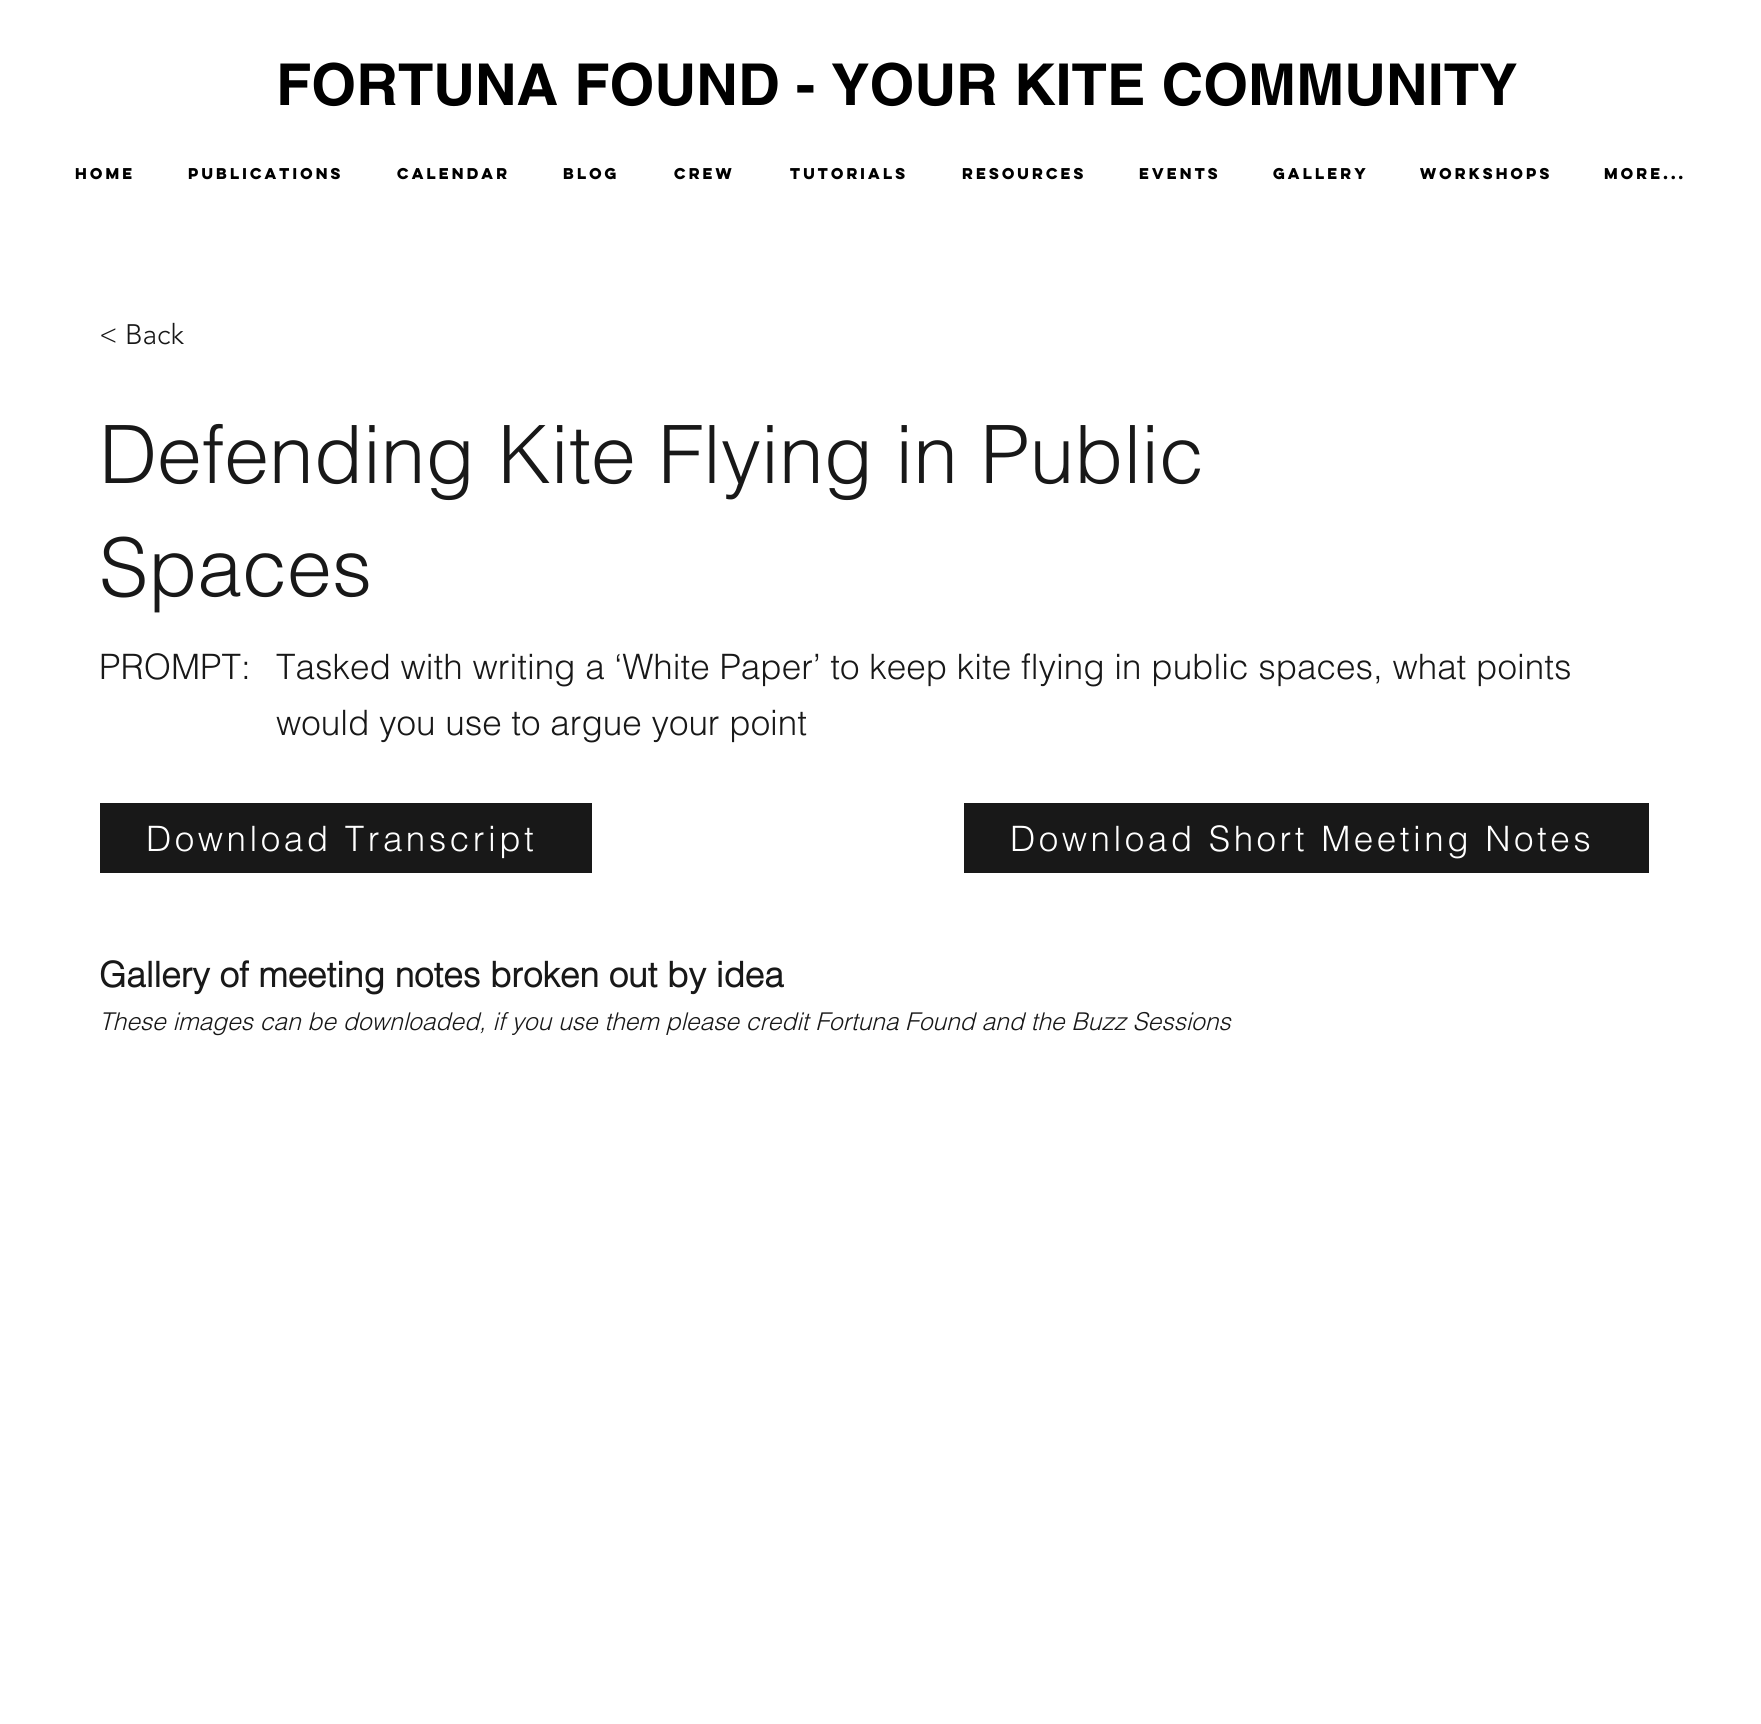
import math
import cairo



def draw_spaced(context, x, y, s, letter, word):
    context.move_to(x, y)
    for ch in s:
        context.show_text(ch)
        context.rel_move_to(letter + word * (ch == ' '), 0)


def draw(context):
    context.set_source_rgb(1, 1, 1)
    context.paint()
    context.set_source_rgb(24 / 255, 24 / 255, 24 / 255)
    context.rectangle(100, 803, 492, 70)
    context.fill()
    context.rectangle(964, 803, 685, 70)
    context.fill()
    context.select_font_face("helvetica", cairo.FontSlant.NORMAL, cairo.FontWeight.BOLD)
    context.set_font_size(57.75)
    context.set_source_rgb(0, 0, 0)
    context.move_to(276, 105)
    context.show_text("FORTUNA FOUND - YOUR KITE COMMUNITY")
    context.select_font_face("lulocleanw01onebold", cairo.FontSlant.NORMAL, cairo.FontWeight.BOLD)
    context.set_font_size(14)
    context.move_to(75, 179)
    context.show_text("Home")
    context.move_to(188, 179)
    context.show_text("Publications")
    context.move_to(397, 179)
    context.show_text("Calendar")
    context.move_to(563, 179)
    context.show_text("Blog")
    context.move_to(674, 179)
    context.show_text("Crew")
    context.move_to(790, 179)
    context.show_text("Tutorials")
    context.move_to(962, 179)
    context.show_text("Resources")
    context.move_to(1139, 179)
    context.show_text("Events")
    context.move_to(1273, 179)
    context.show_text("Gallery")
    context.move_to(1420, 179)
    context.show_text("Workshops")
    context.move_to(1604, 179)
    context.show_text("More...")
    context.select_font_face("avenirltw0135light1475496 Light")
    context.set_font_size(28)
    context.set_source_rgb(24 / 255, 24 / 255, 24 / 255)
    context.move_to(99, 344)
    context.show_text("< Back")
    context.select_font_face("helvetica Light")
    context.set_font_size(80.5)
    context.move_to(99, 483)
    context.show_text("Defending Kite Flying in Public")
    context.move_to(99, 596)
    context.show_text("Spaces")
    context.set_font_size(35)
    context.move_to(99, 679)
    context.show_text("PROMPT:")
    context.move_to(276, 679)
    context.show_text("Tasked with writing a ‘White Paper’ to keep kite flying in public spaces, what points")
    context.move_to(276, 735)
    context.show_text("would you use to argue your point")
    context.set_source_rgb(1, 1, 1)
    draw_spaced(context, 146, 851, "Download Transcript", 3.5, 0)
    draw_spaced(context, 1010, 851, "Download Short Meeting Notes", 3.5, 0)
    context.select_font_face("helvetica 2", cairo.FontSlant.NORMAL, cairo.FontWeight.BOLD)
    context.set_source_rgb(24 / 255, 24 / 255, 24 / 255)
    context.move_to(99, 987)
    context.show_text("Gallery of meeting notes broken out by idea")
    context.select_font_face("helvetica Light", cairo.FontSlant.ITALIC)
    context.set_font_size(24.5)
    context.move_to(99, 1030)
    context.show_text("These images can be downloaded, if you use them please credit Fortuna Found and the Buzz Sessions")


surface = cairo.ImageSurface(cairo.Format.RGB24, 1761, 1724)
context = cairo.Context(surface)
options = cairo.FontOptions()
options.set_hint_metrics(cairo.HintMetrics.OFF)
options.set_hint_style(cairo.HintStyle.NONE)
context.set_font_options(options)
context.set_miter_limit(4)
draw(context)
surface.write_to_png("out.png")
